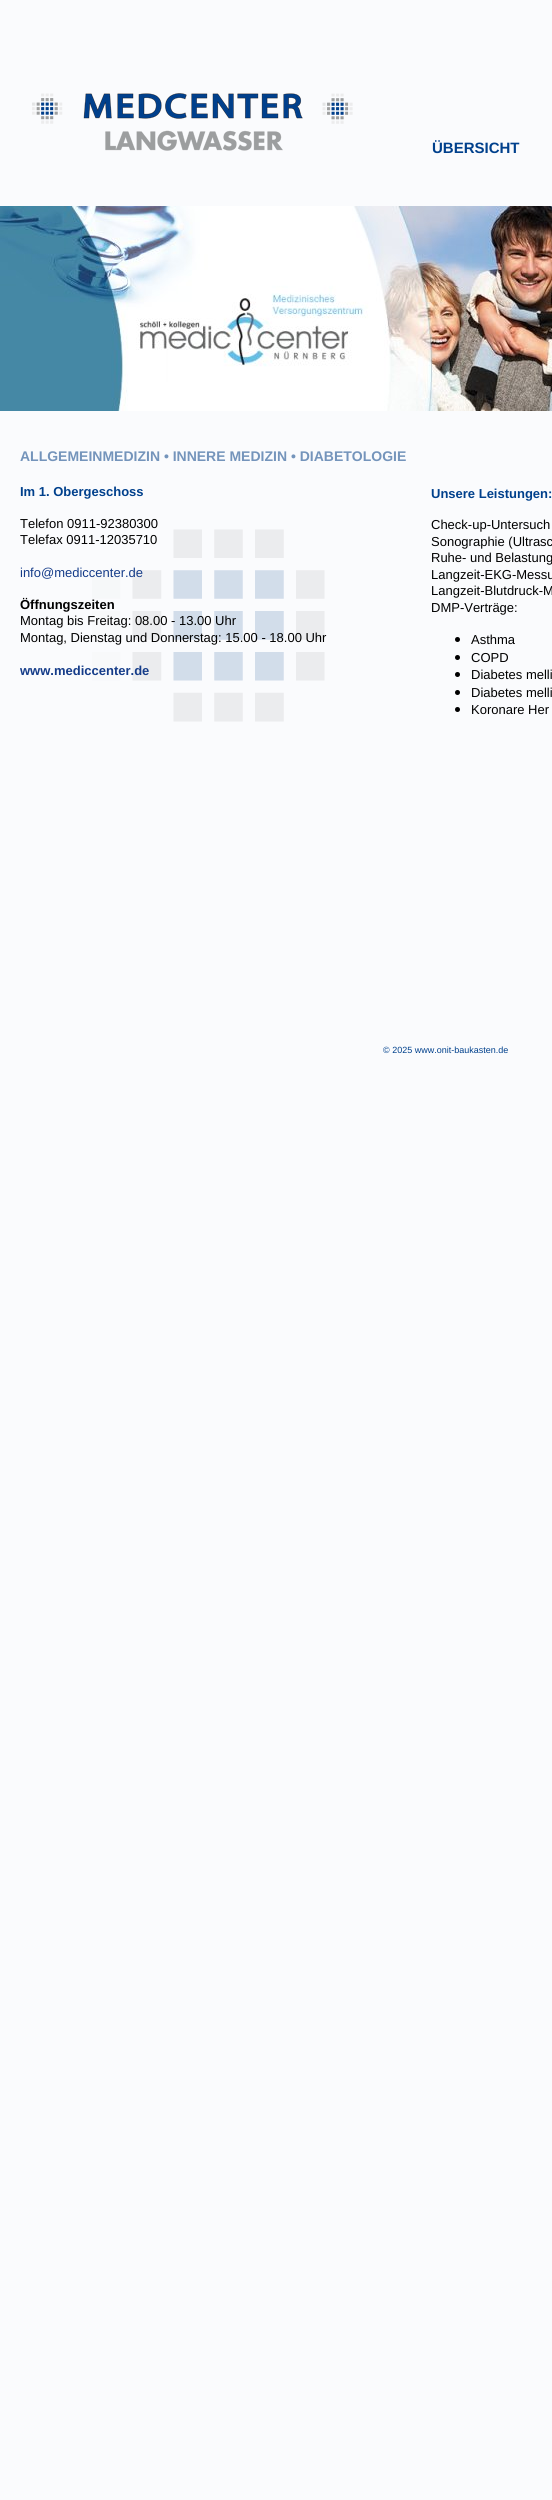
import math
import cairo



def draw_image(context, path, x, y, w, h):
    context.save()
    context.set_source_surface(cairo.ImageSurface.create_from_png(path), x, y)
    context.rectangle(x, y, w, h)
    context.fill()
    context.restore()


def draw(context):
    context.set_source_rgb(250 / 255, 251 / 255, 253 / 255)
    context.paint()
    draw_image(context, "images/1.png", 32, 93, 321, 58)
    draw_image(context, "images/2.png", 0, 206, 552, 205)
    draw_image(context, "images/3.png", 92, 529, 233, 193)
    context.set_source_rgb(0, 0, 0)
    context.arc(457.5, 639.5, 2.5, 0, 2 * math.pi)
    context.fill()
    context.arc(457.5, 657.5, 2.5, 0, 2 * math.pi)
    context.fill()
    context.arc(457.5, 674.5, 2.5, 0, 2 * math.pi)
    context.fill()
    context.arc(457.5, 692.5, 2.5, 0, 2 * math.pi)
    context.fill()
    context.arc(457.5, 709.5, 2.5, 0, 2 * math.pi)
    context.fill()
    context.select_font_face("Liberation Sans", cairo.FontSlant.NORMAL, cairo.FontWeight.BOLD)
    context.set_font_size(15)
    context.set_source_rgb(0, 64 / 255, 140 / 255)
    context.move_to(432, 153)
    context.show_text("ÜBERSICHT")
    context.set_font_size(14)
    context.set_source_rgb(116 / 255, 148 / 255, 187 / 255)
    context.move_to(20, 461)
    context.show_text("ALLGEMEINMEDIZIN • INNERE MEDIZIN • DIABETOLOGIE")
    context.set_font_size(13)
    context.set_source_rgb(0, 64 / 255, 140 / 255)
    context.move_to(20, 496)
    context.show_text("Im 1. Obergeschoss")
    context.select_font_face("Liberation Sans")
    context.set_source_rgb(0, 0, 0)
    context.move_to(20, 528)
    context.show_text("Telefon 0911-92380300")
    context.move_to(20, 544)
    context.show_text("Telefax 0911-12035710")
    context.set_source_rgb(21 / 255, 60 / 255, 137 / 255)
    context.move_to(20, 577)
    context.show_text("info@mediccenter.de")
    context.select_font_face("Liberation Sans", cairo.FontSlant.NORMAL, cairo.FontWeight.BOLD)
    context.set_source_rgb(0, 0, 0)
    context.move_to(20, 609)
    context.show_text("Öffnungszeiten")
    context.select_font_face("Liberation Sans")
    context.move_to(20, 625)
    context.show_text("Montag bis Freitag: 08.00 - 13.00 Uhr")
    context.move_to(20, 642)
    context.show_text("Montag, Dienstag und Donnerstag: 15.00 - 18.00 Uhr")
    context.select_font_face("Liberation Sans", cairo.FontSlant.NORMAL, cairo.FontWeight.BOLD)
    context.set_source_rgb(21 / 255, 60 / 255, 137 / 255)
    context.move_to(20, 675)
    context.show_text("www.mediccenter.de")
    context.set_source_rgb(0, 64 / 255, 140 / 255)
    context.move_to(431, 498)
    context.show_text("Unsere Leistungen:")
    context.select_font_face("Liberation Sans")
    context.set_source_rgb(0, 0, 0)
    context.move_to(431, 529)
    context.show_text("Check-up-Untersuch")
    context.move_to(431, 546)
    context.show_text("Sonographie (Ultrasc")
    context.move_to(431, 562)
    context.show_text("Ruhe- und Belastung")
    context.move_to(431, 579)
    context.show_text("Langzeit-EKG-Messu")
    context.move_to(431, 595)
    context.show_text("Langzeit-Blutdruck-M")
    context.move_to(431, 612)
    context.show_text("DMP-Verträge:")
    context.move_to(471, 644)
    context.show_text("Asthma")
    context.move_to(471, 662)
    context.show_text("COPD")
    context.move_to(471, 679)
    context.show_text("Diabetes melli")
    context.move_to(471, 697)
    context.show_text("Diabetes melli")
    context.move_to(471, 714)
    context.show_text("Koronare Her")
    context.set_font_size(9)
    context.set_source_rgb(0, 64 / 255, 140 / 255)
    context.move_to(383, 1053)
    context.show_text("© 2025 www.onit-baukasten.de")


surface = cairo.ImageSurface(cairo.Format.RGB24, 552, 2500)
context = cairo.Context(surface)
options = cairo.FontOptions()
options.set_hint_metrics(cairo.HintMetrics.OFF)
options.set_hint_style(cairo.HintStyle.NONE)
context.set_font_options(options)
context.set_miter_limit(4)
draw(context)
surface.write_to_png("out.png")
